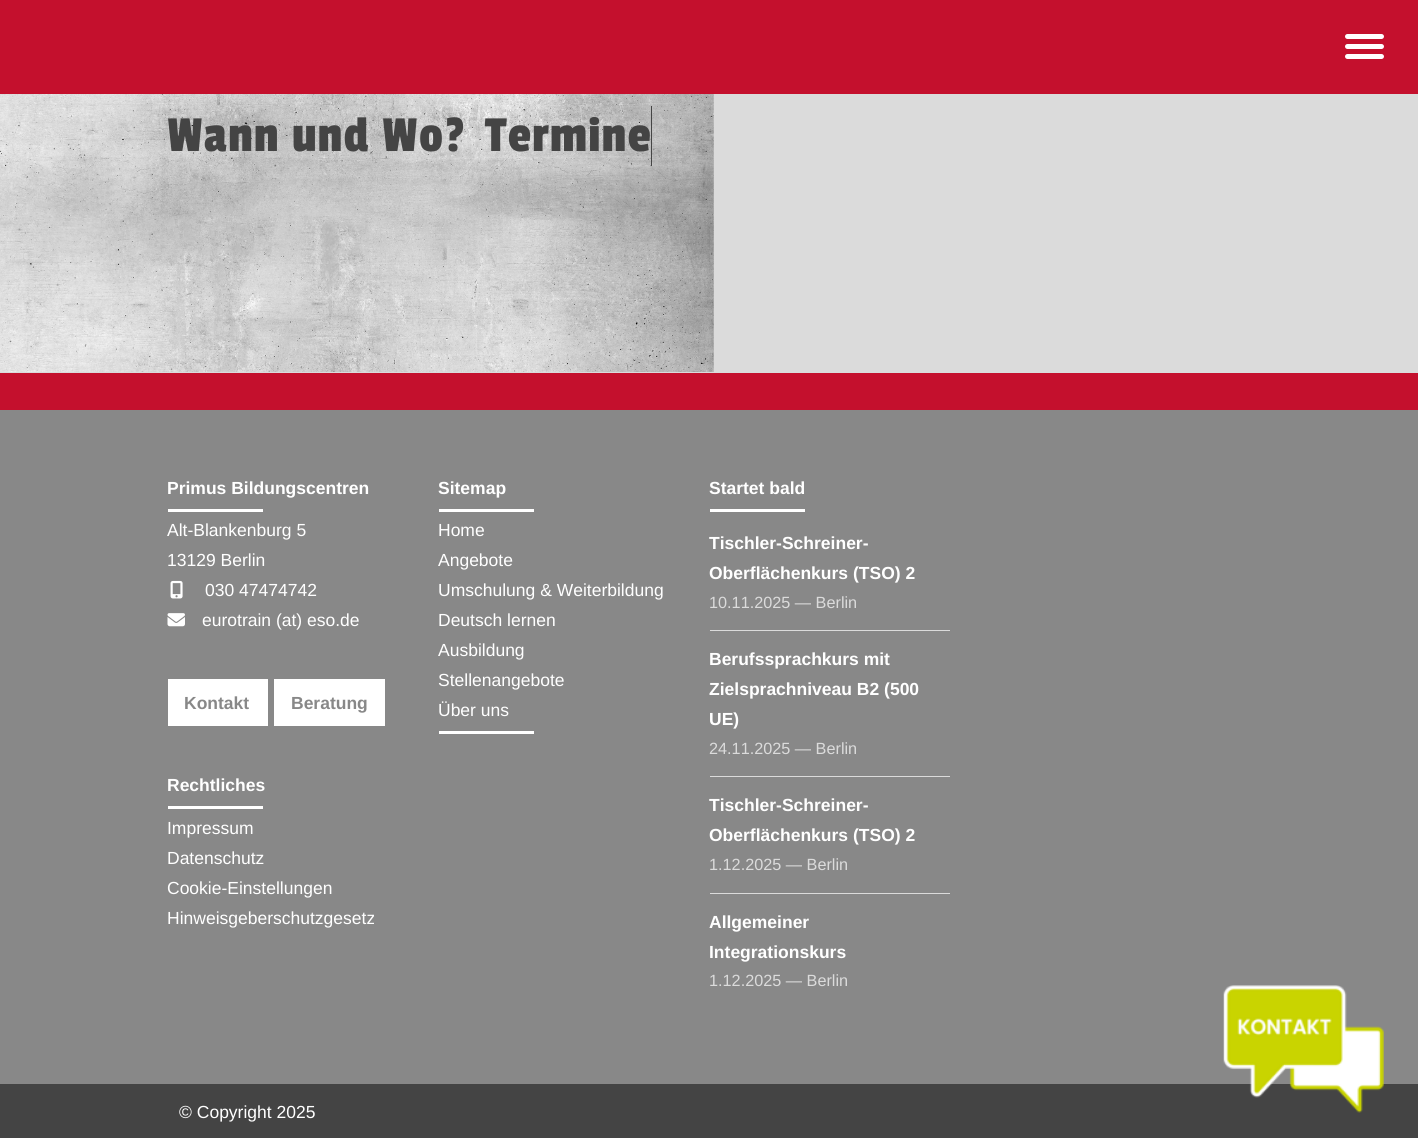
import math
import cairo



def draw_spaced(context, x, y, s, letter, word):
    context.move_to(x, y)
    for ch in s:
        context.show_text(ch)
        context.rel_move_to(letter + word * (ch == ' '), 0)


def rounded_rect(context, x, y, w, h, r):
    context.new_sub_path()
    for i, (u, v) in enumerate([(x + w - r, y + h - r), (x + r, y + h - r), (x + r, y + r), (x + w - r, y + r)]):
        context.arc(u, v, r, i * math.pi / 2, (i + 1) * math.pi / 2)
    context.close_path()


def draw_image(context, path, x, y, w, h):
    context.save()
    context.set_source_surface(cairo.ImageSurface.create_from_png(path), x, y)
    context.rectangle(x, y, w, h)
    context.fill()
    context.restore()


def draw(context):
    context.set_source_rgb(136 / 255, 136 / 255, 136 / 255)
    context.paint()
    context.set_source_rgb(196 / 255, 16 / 255, 45 / 255)
    context.rectangle(0, 0, 1418, 94)
    context.fill()
    context.set_source_rgb(1, 1, 1)
    rounded_rect(context, 1345, 44, 39, 5, 2.5)
    context.fill()
    rounded_rect(context, 1345, 34, 39, 5, 2.5)
    context.fill()
    rounded_rect(context, 1345, 54, 39, 5, 2.5)
    context.fill()
    context.set_source_rgb(219 / 255, 219 / 255, 219 / 255)
    context.rectangle(0, 94, 1418, 279)
    context.fill()
    draw_image(context, "images/1.png", 0, 94, 714, 278)
    context.set_source_rgb(69 / 255, 69 / 255, 69 / 255)
    context.rectangle(651, 106, 1, 60)
    context.fill()
    context.set_source_rgb(196 / 255, 16 / 255, 45 / 255)
    context.rectangle(0, 373, 1418, 37)
    context.fill()
    context.set_source_rgb(1, 1, 1)
    context.rectangle(168, 509, 95, 3)
    context.fill()
    draw_image(context, "images/2.png", 170, 580, 13, 19)
    draw_image(context, "images/3.png", 167, 613, 18, 14)
    context.rectangle(168, 679, 100, 47)
    context.fill()
    context.rectangle(274, 679, 111, 47)
    context.fill()
    context.rectangle(168, 806, 95, 3)
    context.fill()
    context.rectangle(439, 509, 95, 3)
    context.fill()
    context.rectangle(439, 731, 95, 3)
    context.fill()
    context.rectangle(710, 509, 95, 3)
    context.fill()
    context.set_source_rgb(219 / 255, 219 / 255, 219 / 255)
    context.rectangle(710, 630, 240, 1)
    context.fill()
    context.rectangle(710, 776, 240, 1)
    context.fill()
    context.rectangle(710, 893, 240, 1)
    context.fill()
    context.set_source_rgb(68 / 255, 68 / 255, 68 / 255)
    context.rectangle(0, 1084, 1418, 54)
    context.fill()
    draw_image(context, "images/4.png", 1223, 985, 161, 128)
    context.select_font_face("Passion One")
    context.set_font_size(52.5)
    draw_spaced(context, 167, 151, "Wann und Wo?", 1.25, 0)
    draw_spaced(context, 485, 151, "Termine", 1.25, 0)
    context.select_font_face("Liberation Sans", cairo.FontSlant.NORMAL, cairo.FontWeight.BOLD)
    context.set_font_size(17.5)
    context.set_source_rgb(1, 1, 1)
    context.move_to(167, 494)
    context.show_text("Primus Bildungscentren")
    context.select_font_face("Liberation Sans")
    context.move_to(167, 536)
    context.show_text("Alt-Blankenburg 5")
    context.move_to(167, 566)
    context.show_text("13129 Berlin")
    context.move_to(205, 596)
    context.show_text("030 47474742")
    context.move_to(202, 626)
    context.show_text("eurotrain (at) eso.de")
    context.select_font_face("Liberation Sans", cairo.FontSlant.NORMAL, cairo.FontWeight.BOLD)
    context.set_source_rgb(136 / 255, 136 / 255, 136 / 255)
    context.move_to(184, 709)
    context.show_text("Kontakt")
    context.move_to(291, 709)
    context.show_text("Beratung")
    context.set_source_rgb(1, 1, 1)
    context.move_to(167, 791)
    context.show_text("Rechtliches")
    context.select_font_face("Liberation Sans")
    context.move_to(167, 834)
    context.show_text("Impressum")
    context.move_to(167, 864)
    context.show_text("Datenschutz")
    context.move_to(167, 894)
    context.show_text("Cookie-Einstellungen")
    context.move_to(167, 924)
    context.show_text("Hinweisgeberschutzgesetz")
    context.select_font_face("Liberation Sans", cairo.FontSlant.NORMAL, cairo.FontWeight.BOLD)
    context.move_to(438, 494)
    context.show_text("Sitemap")
    context.select_font_face("Liberation Sans")
    context.move_to(438, 536)
    context.show_text("Home")
    context.move_to(438, 566)
    context.show_text("Angebote")
    context.move_to(438, 596)
    context.show_text("Umschulung & Weiterbildung")
    context.move_to(438, 626)
    context.show_text("Deutsch lernen")
    context.move_to(438, 656)
    context.show_text("Ausbildung")
    context.move_to(438, 686)
    context.show_text("Stellenangebote")
    context.move_to(438, 716)
    context.show_text("Über uns")
    context.select_font_face("Liberation Sans", cairo.FontSlant.NORMAL, cairo.FontWeight.BOLD)
    context.move_to(709, 494)
    context.show_text("Startet bald")
    context.move_to(709, 549)
    context.show_text("Tischler-Schreiner-")
    context.move_to(709, 579)
    context.show_text("Oberflächenkurs (TSO) 2")
    context.select_font_face("Liberation Sans")
    context.set_font_size(16.25)
    context.set_source_rgb(219 / 255, 219 / 255, 219 / 255)
    context.move_to(709, 608)
    context.show_text("10.11.2025 — Berlin")
    context.select_font_face("Liberation Sans", cairo.FontSlant.NORMAL, cairo.FontWeight.BOLD)
    context.set_font_size(17.5)
    context.set_source_rgb(1, 1, 1)
    context.move_to(709, 665)
    context.show_text("Berufssprachkurs mit")
    context.move_to(709, 695)
    context.show_text("Zielsprachniveau B2 (500")
    context.move_to(709, 725)
    context.show_text("UE)")
    context.select_font_face("Liberation Sans")
    context.set_font_size(16.25)
    context.set_source_rgb(219 / 255, 219 / 255, 219 / 255)
    context.move_to(709, 754)
    context.show_text("24.11.2025 — Berlin")
    context.select_font_face("Liberation Sans", cairo.FontSlant.NORMAL, cairo.FontWeight.BOLD)
    context.set_font_size(17.5)
    context.set_source_rgb(1, 1, 1)
    context.move_to(709, 811)
    context.show_text("Tischler-Schreiner-")
    context.move_to(709, 841)
    context.show_text("Oberflächenkurs (TSO) 2")
    context.select_font_face("Liberation Sans")
    context.set_font_size(16.25)
    context.set_source_rgb(219 / 255, 219 / 255, 219 / 255)
    context.move_to(709, 870)
    context.show_text("1.12.2025 — Berlin")
    context.select_font_face("Liberation Sans", cairo.FontSlant.NORMAL, cairo.FontWeight.BOLD)
    context.set_font_size(17.5)
    context.set_source_rgb(1, 1, 1)
    context.move_to(709, 928)
    context.show_text("Allgemeiner")
    context.move_to(709, 958)
    context.show_text("Integrationskurs")
    context.select_font_face("Liberation Sans")
    context.set_font_size(16.25)
    context.set_source_rgb(219 / 255, 219 / 255, 219 / 255)
    context.move_to(709, 986)
    context.show_text("1.12.2025 — Berlin")
    context.set_font_size(17.5)
    context.set_source_rgb(1, 1, 1)
    context.move_to(179, 1118)
    context.show_text("© Copyright 2025")


surface = cairo.ImageSurface(cairo.Format.RGB24, 1418, 1138)
context = cairo.Context(surface)
options = cairo.FontOptions()
options.set_hint_metrics(cairo.HintMetrics.OFF)
options.set_hint_style(cairo.HintStyle.NONE)
context.set_font_options(options)
context.set_miter_limit(4)
draw(context)
surface.write_to_png("out.png")
